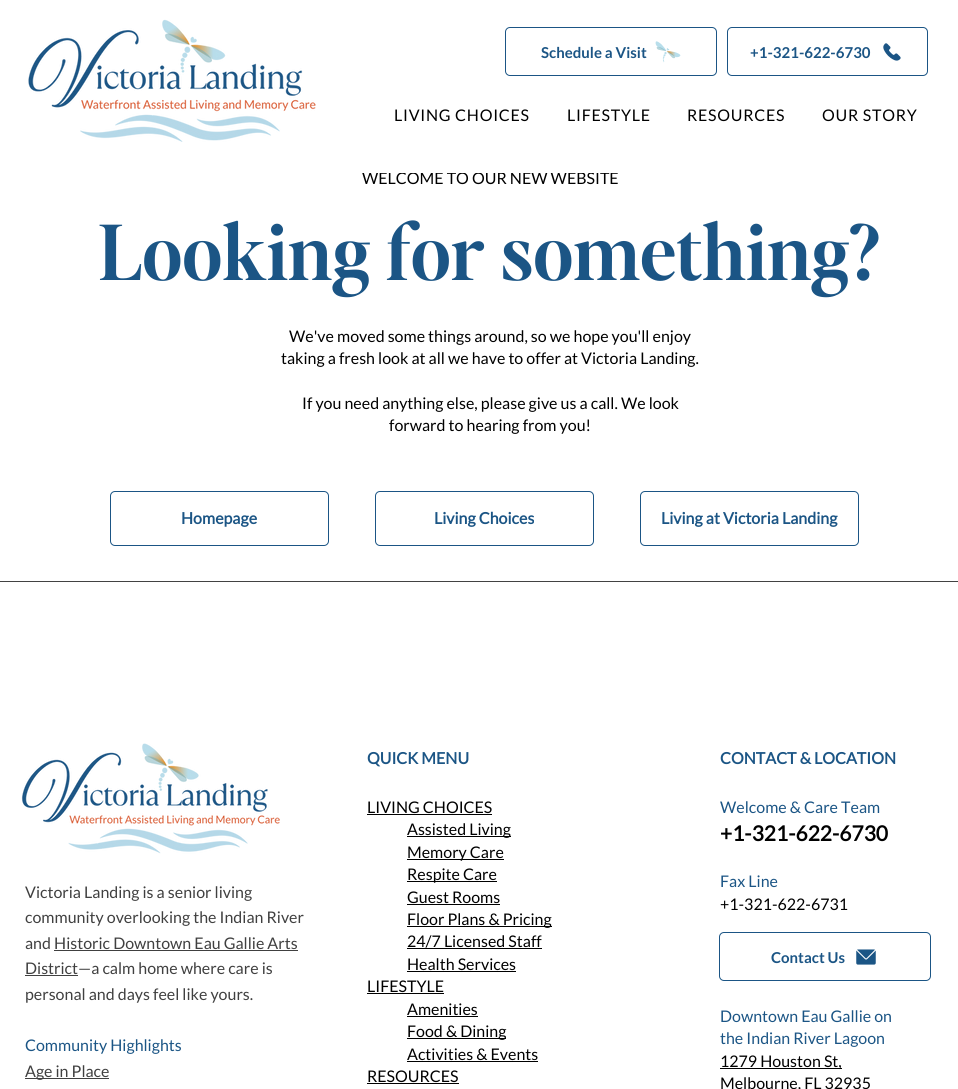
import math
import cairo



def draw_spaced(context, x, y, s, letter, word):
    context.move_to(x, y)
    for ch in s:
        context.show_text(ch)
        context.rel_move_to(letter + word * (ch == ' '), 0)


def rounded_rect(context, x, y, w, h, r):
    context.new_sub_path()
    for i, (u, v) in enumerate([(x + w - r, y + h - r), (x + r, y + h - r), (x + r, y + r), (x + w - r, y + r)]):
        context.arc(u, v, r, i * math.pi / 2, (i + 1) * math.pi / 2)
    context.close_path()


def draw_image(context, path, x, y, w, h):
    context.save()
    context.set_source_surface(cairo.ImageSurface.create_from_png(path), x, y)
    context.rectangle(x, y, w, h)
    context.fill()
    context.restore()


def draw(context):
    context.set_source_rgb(1, 1, 1)
    context.paint()
    draw_image(context, "images/1.png", 28, 19, 288, 123)
    rounded_rect(context, 505.5, 27.5, 211, 48, 4.5)
    context.set_source_rgb(27 / 255, 85 / 255, 133 / 255)
    context.set_line_width(1)
    context.stroke()
    draw_image(context, "images/2.png", 655, 41, 26, 22)
    rounded_rect(context, 727.5, 27.5, 200, 48, 4.5)
    context.stroke()
    draw_image(context, "images/3.png", 883, 43, 18, 18)
    rounded_rect(context, 110.5, 491.5, 218, 54, 4.5)
    context.stroke()
    rounded_rect(context, 375.5, 491.5, 218, 54, 4.5)
    context.stroke()
    rounded_rect(context, 640.5, 491.5, 218, 54, 4.5)
    context.stroke()
    context.set_source_rgb(66 / 255, 66 / 255, 66 / 255)
    context.rectangle(0, 581, 958, 1)
    context.fill()
    draw_image(context, "images/4.png", 21, 743, 259, 111)
    context.set_source_rgb(64 / 255, 64 / 255, 64 / 255)
    context.rectangle(54, 950, 244, 1)
    context.fill()
    context.rectangle(25, 975, 53, 1)
    context.fill()
    context.rectangle(25, 1078, 84, 1)
    context.fill()
    context.set_source_rgb(0, 0, 0)
    context.rectangle(367, 814, 125, 1)
    context.fill()
    context.rectangle(407, 836, 104, 1)
    context.fill()
    context.rectangle(407, 859, 97, 1)
    context.fill()
    context.rectangle(407, 881, 90, 1)
    context.fill()
    context.rectangle(407, 904, 93, 1)
    context.fill()
    context.rectangle(407, 926, 145, 1)
    context.fill()
    context.rectangle(407, 948, 135, 1)
    context.fill()
    context.rectangle(407, 971, 109, 1)
    context.fill()
    context.rectangle(367, 993, 77, 1)
    context.fill()
    context.rectangle(407, 1016, 71, 1)
    context.fill()
    context.rectangle(407, 1038, 99, 1)
    context.fill()
    context.rectangle(407, 1061, 131, 1)
    context.fill()
    context.rectangle(367, 1083, 92, 1)
    context.fill()
    context.rectangle(720, 1068, 122, 1)
    context.fill()
    rounded_rect(context, 719.5, 932.5, 211, 48, 4.5)
    context.set_source_rgb(27 / 255, 85 / 255, 133 / 255)
    context.stroke()
    draw_image(context, "images/5.png", 856, 949, 20, 16)
    context.select_font_face("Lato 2", cairo.FontSlant.NORMAL, cairo.FontWeight.BOLD)
    context.set_font_size(15)
    context.move_to(541, 58)
    context.show_text("Schedule a Visit")
    context.move_to(750, 58)
    context.show_text("+1-321-622-6730")
    context.select_font_face("Lato")
    context.set_font_size(16)
    context.set_source_rgb(0, 0, 0)
    draw_spaced(context, 394, 121, "LIVING CHOICES", 0.75, 0)
    draw_spaced(context, 567, 121, "LIFESTYLE", 0.75, 0)
    draw_spaced(context, 687, 121, "RESOURCES", 0.75, 0)
    draw_spaced(context, 822, 121, "OUR STORY", 0.75, 0)
    context.move_to(362, 184)
    context.show_text("WELCOME TO OUR NEW WEBSITE")
    context.set_source_rgb(1, 1, 1)
    context.rectangle(361, 172, 257, 1)
    context.fill()
    context.select_font_face("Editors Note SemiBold")
    context.set_font_size(76)
    context.set_source_rgb(27 / 255, 85 / 255, 133 / 255)
    context.move_to(98, 280)
    context.show_text("Looking for something?")
    context.select_font_face("Lato")
    context.set_font_size(16)
    context.set_source_rgb(0, 0, 0)
    context.move_to(289, 342)
    context.show_text("We've moved some things around, so we hope you'll enjoy")
    context.move_to(281, 364)
    context.show_text("taking a fresh look at all we have to offer at Victoria Landing.")
    context.move_to(302, 409)
    context.show_text("If you need anything else, please give us a call. We look")
    context.move_to(389, 431)
    context.show_text("forward to hearing from you!")
    context.select_font_face("Lato", cairo.FontSlant.NORMAL, cairo.FontWeight.BOLD)
    context.set_source_rgb(27 / 255, 85 / 255, 133 / 255)
    context.move_to(181, 524)
    context.show_text("Homepage")
    context.move_to(434, 524)
    context.show_text("Living Choices")
    context.move_to(661, 524)
    context.show_text("Living at Victoria Landing")
    context.select_font_face("Lato")
    context.set_source_rgb(64 / 255, 64 / 255, 64 / 255)
    context.move_to(25, 898)
    context.show_text("Victoria Landing is a senior living")
    context.move_to(25, 923)
    context.show_text("community overlooking the Indian River")
    context.move_to(25, 949)
    context.show_text("and Historic Downtown Eau Gallie Arts")
    context.move_to(25, 974)
    context.show_text("District—a calm home where care is")
    context.move_to(25, 1000)
    context.show_text("personal and days feel like yours.")
    context.set_source_rgb(27 / 255, 85 / 255, 133 / 255)
    context.move_to(25, 1051)
    context.show_text("Community Highlights")
    context.set_source_rgb(64 / 255, 64 / 255, 64 / 255)
    context.move_to(25, 1077)
    context.show_text("Age in Place")
    context.select_font_face("Lato", cairo.FontSlant.NORMAL, cairo.FontWeight.BOLD)
    context.set_source_rgb(27 / 255, 85 / 255, 133 / 255)
    context.move_to(367, 764)
    context.show_text("QUICK MENU")
    context.select_font_face("Lato")
    context.set_source_rgb(0, 0, 0)
    context.move_to(367, 813)
    context.show_text("LIVING CHOICES")
    context.move_to(407, 835)
    context.show_text("Assisted Living")
    context.move_to(407, 858)
    context.show_text("Memory Care")
    context.move_to(407, 880)
    context.show_text("Respite Care")
    context.move_to(407, 903)
    context.show_text("Guest Rooms")
    context.move_to(407, 925)
    context.show_text("Floor Plans & Pricing")
    context.move_to(407, 947)
    context.show_text("24/7 Licensed Staff")
    context.move_to(407, 970)
    context.show_text("Health Services")
    context.move_to(367, 992)
    context.show_text("LIFESTYLE")
    context.move_to(407, 1015)
    context.show_text("Amenities")
    context.move_to(407, 1037)
    context.show_text("Food & Dining")
    context.move_to(407, 1060)
    context.show_text("Activities & Events")
    context.move_to(367, 1082)
    context.show_text("RESOURCES")
    context.select_font_face("Lato", cairo.FontSlant.NORMAL, cairo.FontWeight.BOLD)
    context.set_source_rgb(27 / 255, 85 / 255, 133 / 255)
    context.move_to(720, 764)
    context.show_text("CONTACT & LOCATION")
    context.select_font_face("Lato")
    context.move_to(720, 813)
    context.show_text("Welcome & Care Team")
    context.select_font_face("Lato", cairo.FontSlant.NORMAL, cairo.FontWeight.BOLD)
    context.set_font_size(21)
    context.set_source_rgb(0, 0, 0)
    context.move_to(720, 841)
    context.show_text("+1-321-622-6730")
    context.select_font_face("Lato")
    context.set_font_size(16)
    context.set_source_rgb(27 / 255, 85 / 255, 133 / 255)
    context.move_to(720, 887)
    context.show_text("Fax Line")
    context.set_source_rgb(0, 0, 0)
    context.move_to(720, 910)
    context.show_text("+1-321-622-6731")
    context.set_source_rgb(27 / 255, 85 / 255, 133 / 255)
    context.move_to(720, 1022)
    context.show_text("Downtown Eau Gallie on")
    context.move_to(720, 1044)
    context.show_text("the Indian River Lagoon")
    context.set_source_rgb(0, 0, 0)
    context.move_to(720, 1067)
    context.show_text("1279 Houston St,")
    context.move_to(720, 1089)
    context.show_text("Melbourne, FL 32935")
    context.select_font_face("Lato 2", cairo.FontSlant.NORMAL, cairo.FontWeight.BOLD)
    context.set_font_size(15)
    context.set_source_rgb(27 / 255, 85 / 255, 133 / 255)
    context.move_to(771, 963)
    context.show_text("Contact Us")


surface = cairo.ImageSurface(cairo.Format.RGB24, 958, 1089)
context = cairo.Context(surface)
options = cairo.FontOptions()
options.set_hint_metrics(cairo.HintMetrics.OFF)
options.set_hint_style(cairo.HintStyle.NONE)
context.set_font_options(options)
context.set_miter_limit(4)
draw(context)
surface.write_to_png("out.png")
